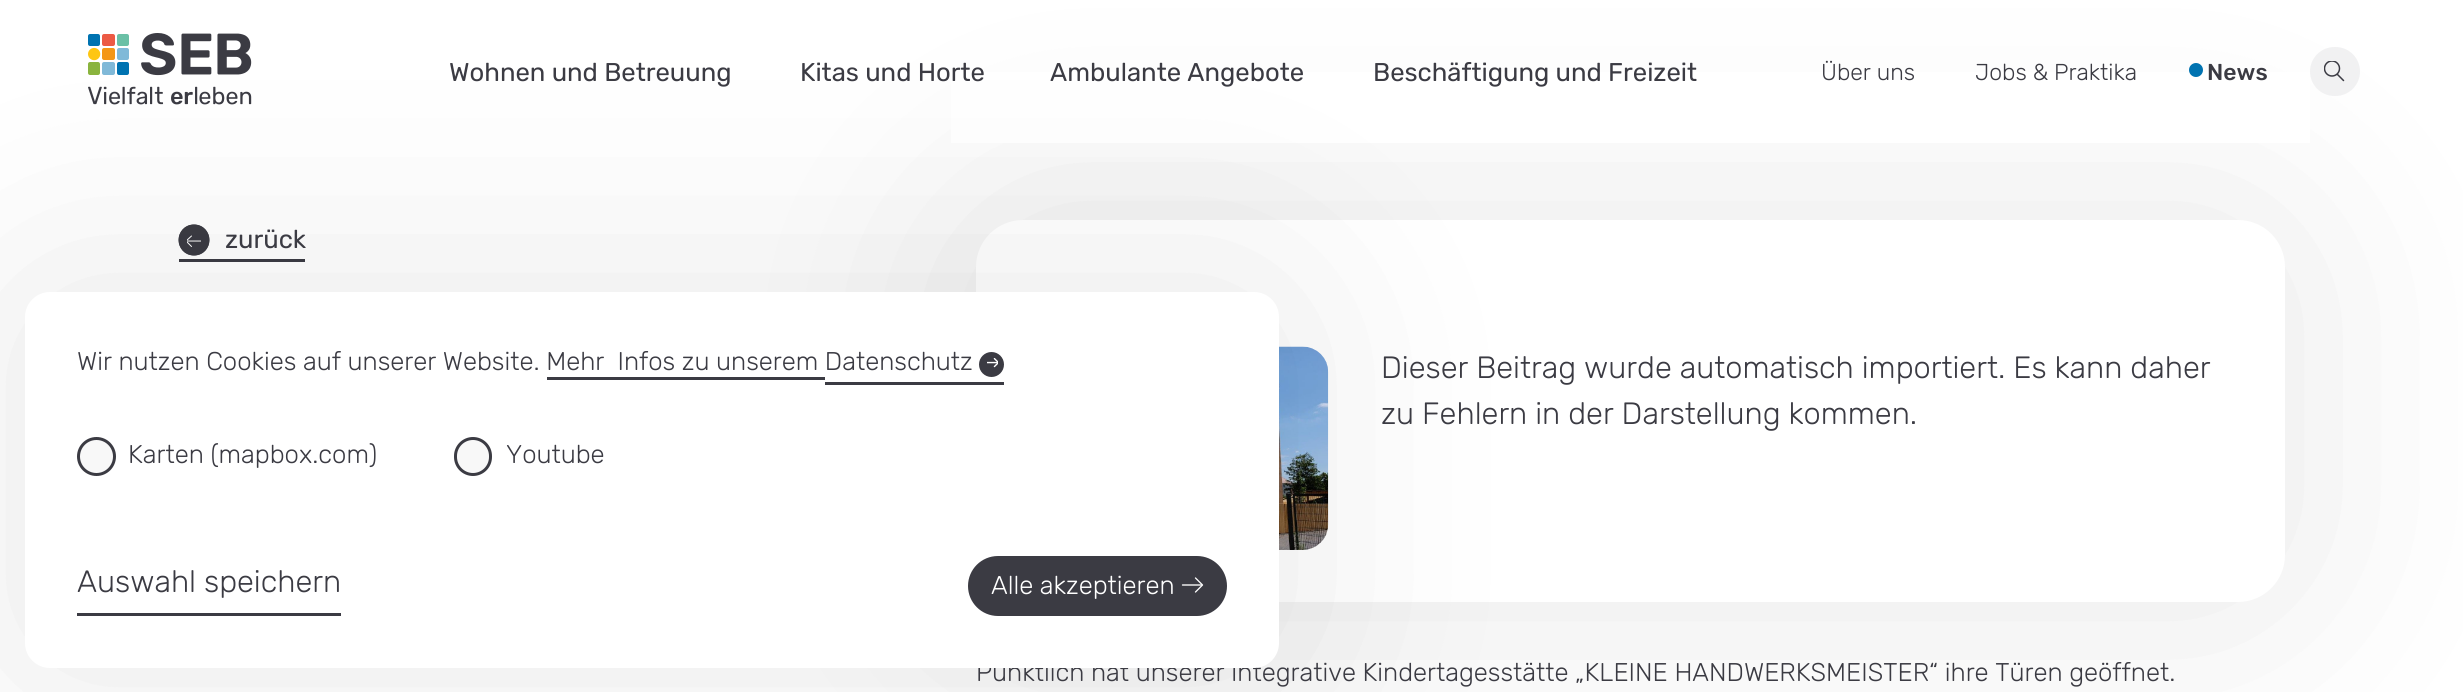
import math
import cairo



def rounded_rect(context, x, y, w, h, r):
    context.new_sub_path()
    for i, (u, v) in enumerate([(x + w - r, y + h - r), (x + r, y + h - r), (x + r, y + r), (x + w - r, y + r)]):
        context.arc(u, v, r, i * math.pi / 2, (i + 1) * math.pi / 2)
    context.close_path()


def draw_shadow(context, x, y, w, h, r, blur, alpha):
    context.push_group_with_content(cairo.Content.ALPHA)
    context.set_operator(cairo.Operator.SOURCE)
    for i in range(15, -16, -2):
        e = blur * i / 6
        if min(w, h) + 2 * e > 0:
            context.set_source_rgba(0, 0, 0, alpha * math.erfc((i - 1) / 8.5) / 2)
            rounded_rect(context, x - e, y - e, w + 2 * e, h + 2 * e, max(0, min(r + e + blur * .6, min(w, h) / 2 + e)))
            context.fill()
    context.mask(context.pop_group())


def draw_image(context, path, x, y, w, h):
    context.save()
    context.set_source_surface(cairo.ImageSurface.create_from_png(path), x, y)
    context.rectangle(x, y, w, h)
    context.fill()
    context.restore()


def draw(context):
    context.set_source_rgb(1, 1, 1)
    context.paint()
    context.set_source_rgb(0, 0, 0)
    draw_shadow(context, 976, 220, 1309, 382, 47, 115.5, 0.1)
    context.set_source_rgb(1, 1, 1)
    context.rectangle(951, 72, 1359, 71)
    context.fill()
    draw_image(context, "images/1.png", 88, 33, 164, 72)
    context.set_source_rgb(0, 115 / 255, 177 / 255)
    context.arc(2196, 70, 5.5, 0, 2 * math.pi)
    context.fill_preserve()
    context.set_line_width(3)
    context.stroke()
    context.set_source_rgb(241 / 255, 241 / 255, 242 / 255)
    rounded_rect(context, 2310, 47, 50, 49, 24.5)
    context.fill()
    context.save()
    context.rectangle(2324, 61, 22, 22)
    context.clip()
    context.arc(2332, 68.5, 7.5, 0, 2 * math.pi)
    context.set_source_rgb(59 / 255, 59 / 255, 67 / 255)
    context.set_line_width(1.5)
    context.stroke()
    context.restore()
    context.new_path()
    context.move_to(2337.5, 74.5)
    context.line_to(2343.5, 80.5)
    context.set_source_rgb(59 / 255, 59 / 255, 67 / 255)
    context.set_line_width(1.5)
    context.set_line_cap(cairo.LineCap.ROUND)
    context.stroke()
    context.rectangle(179, 259, 126, 3)
    context.fill()
    context.new_path()
    context.move_to(194, 255.5)
    context.curve_to(185.5, 255.5, 178.5, 248.5, 178.5, 240)
    context.curve_to(178.5, 231.5, 185.5, 224.5, 194, 224.5)
    context.curve_to(202.5, 224.5, 209.5, 231.5, 209.5, 240)
    context.curve_to(209.5, 248.5, 202.5, 255.5, 194, 255.5)
    context.close_path()
    context.fill()
    context.new_path()
    context.move_to(194, 254)
    context.curve_to(175.5, 254, 175.5, 226, 194, 226)
    context.curve_to(212.5, 226, 212.5, 254, 194, 254)
    context.close_path()
    context.set_line_width(2.8)
    context.set_line_cap(cairo.LineCap.BUTT)
    context.stroke()
    context.save()
    context.rectangle(187, 231, 14, 17)
    context.clip()
    context.new_path()
    context.move_to(201, 241)
    context.line_to(186.5, 241)
    context.set_source_rgb(1, 1, 1)
    context.set_line_width(1)
    context.set_line_cap(cairo.LineCap.ROUND)
    context.stroke()
    context.new_path()
    context.move_to(191.5, 236)
    context.line_to(186, 241)
    context.line_to(191.5, 246.5)
    context.set_line_join(cairo.LineJoin.ROUND)
    context.stroke()
    context.restore()
    context.set_source_rgb(1, 1, 1)
    rounded_rect(context, 976, 220, 1309, 382, 47)
    context.fill()
    draw_image(context, "images/2.png", 1279, 346, 50, 204)
    context.set_source_rgb(0, 0, 0)
    draw_shadow(context, 25, 292, 1254, 376, 25, 115.5, 0.1)
    context.select_font_face("Rubik")
    context.set_font_size(25.65)
    context.set_source_rgb(59 / 255, 59 / 255, 67 / 255)
    context.move_to(449, 81)
    context.show_text("Wohnen und Betreuung")
    context.move_to(800, 81)
    context.show_text("Kitas und Horte")
    context.move_to(1050, 81)
    context.show_text("Ambulante Angebote")
    context.move_to(1373, 81)
    context.show_text("Beschäftigung und Freizeit")
    context.select_font_face("Rubik Light")
    context.set_font_size(23)
    context.move_to(1821, 80)
    context.show_text("Über uns")
    context.move_to(1975, 80)
    context.show_text("Jobs & Praktika")
    context.select_font_face("Rubik Medium")
    context.move_to(2207, 80)
    context.show_text("News")
    context.select_font_face("Rubik")
    context.set_font_size(25.65)
    context.move_to(225, 248)
    context.show_text("zurück")
    context.select_font_face("Rubik Light")
    context.set_font_size(30.8)
    context.move_to(1381, 378)
    context.show_text("Dieser Beitrag wurde automatisch importiert. Es kann daher")
    context.move_to(1381, 424)
    context.show_text("zu Fehlern in der Darstellung kommen.")
    context.set_font_size(25.65)
    context.move_to(976, 681)
    context.show_text("Pünktlich hat unserer Integrative Kindertagesstätte „KLEINE HANDWERKSMEISTER“ ihre Türen geöffnet.")
    context.set_source_rgb(1, 1, 1)
    rounded_rect(context, 25, 292, 1254, 376, 25)
    context.fill()
    context.set_source_rgb(59 / 255, 59 / 255, 67 / 255)
    context.move_to(77, 370)
    context.show_text("Wir nutzen Cookies auf unserer Website. Mehr  Infos zu unserem Datenschutz")
    context.rectangle(547, 377, 278, 3)
    context.fill()
    context.rectangle(825, 382, 179, 3)
    context.fill()
    context.arc(991.5, 364.5, 11, 0, 2 * math.pi)
    context.fill_preserve()
    context.set_line_width(3)
    context.stroke()
    draw_image(context, "images/3.png", 987, 358, 11, 10)
    context.set_source_rgb(248 / 255, 248 / 255, 248 / 255)
    context.arc(96.5, 456.5, 18, 0, 2 * math.pi)
    context.fill_preserve()
    context.set_source_rgb(59 / 255, 59 / 255, 67 / 255)
    context.stroke()
    context.move_to(128, 463)
    context.show_text("Karten (mapbox.com)")
    context.set_source_rgb(248 / 255, 248 / 255, 248 / 255)
    rounded_rect(context, 455.5, 438.5, 35, 36, 17.5)
    context.fill_preserve()
    context.set_source_rgb(59 / 255, 59 / 255, 67 / 255)
    context.stroke()
    context.move_to(506, 463)
    context.show_text("Youtube")
    context.rectangle(77, 613, 264, 3)
    context.fill()
    context.set_font_size(30.8)
    context.move_to(77, 592)
    context.show_text("Auswahl speichern")
    rounded_rect(context, 969.5, 557.5, 256, 57, 28.5)
    context.fill_preserve()
    context.stroke()
    context.set_font_size(25.65)
    context.set_source_rgb(1, 1, 1)
    context.move_to(991, 594)
    context.show_text("Alle akzeptieren")
    context.new_path()
    context.move_to(1182.5, 585)
    context.line_to(1201.5, 585)
    context.set_line_width(1.3)
    context.set_line_cap(cairo.LineCap.ROUND)
    context.stroke()
    context.new_path()
    context.move_to(1195.5, 592)
    context.line_to(1202.5, 585)
    context.line_to(1195.5, 578)
    context.set_line_join(cairo.LineJoin.ROUND)
    context.stroke()


surface = cairo.ImageSurface(cairo.Format.RGB24, 2463, 692)
context = cairo.Context(surface)
options = cairo.FontOptions()
options.set_hint_metrics(cairo.HintMetrics.OFF)
options.set_hint_style(cairo.HintStyle.NONE)
context.set_font_options(options)
context.set_miter_limit(4)
draw(context)
surface.write_to_png("out.png")
